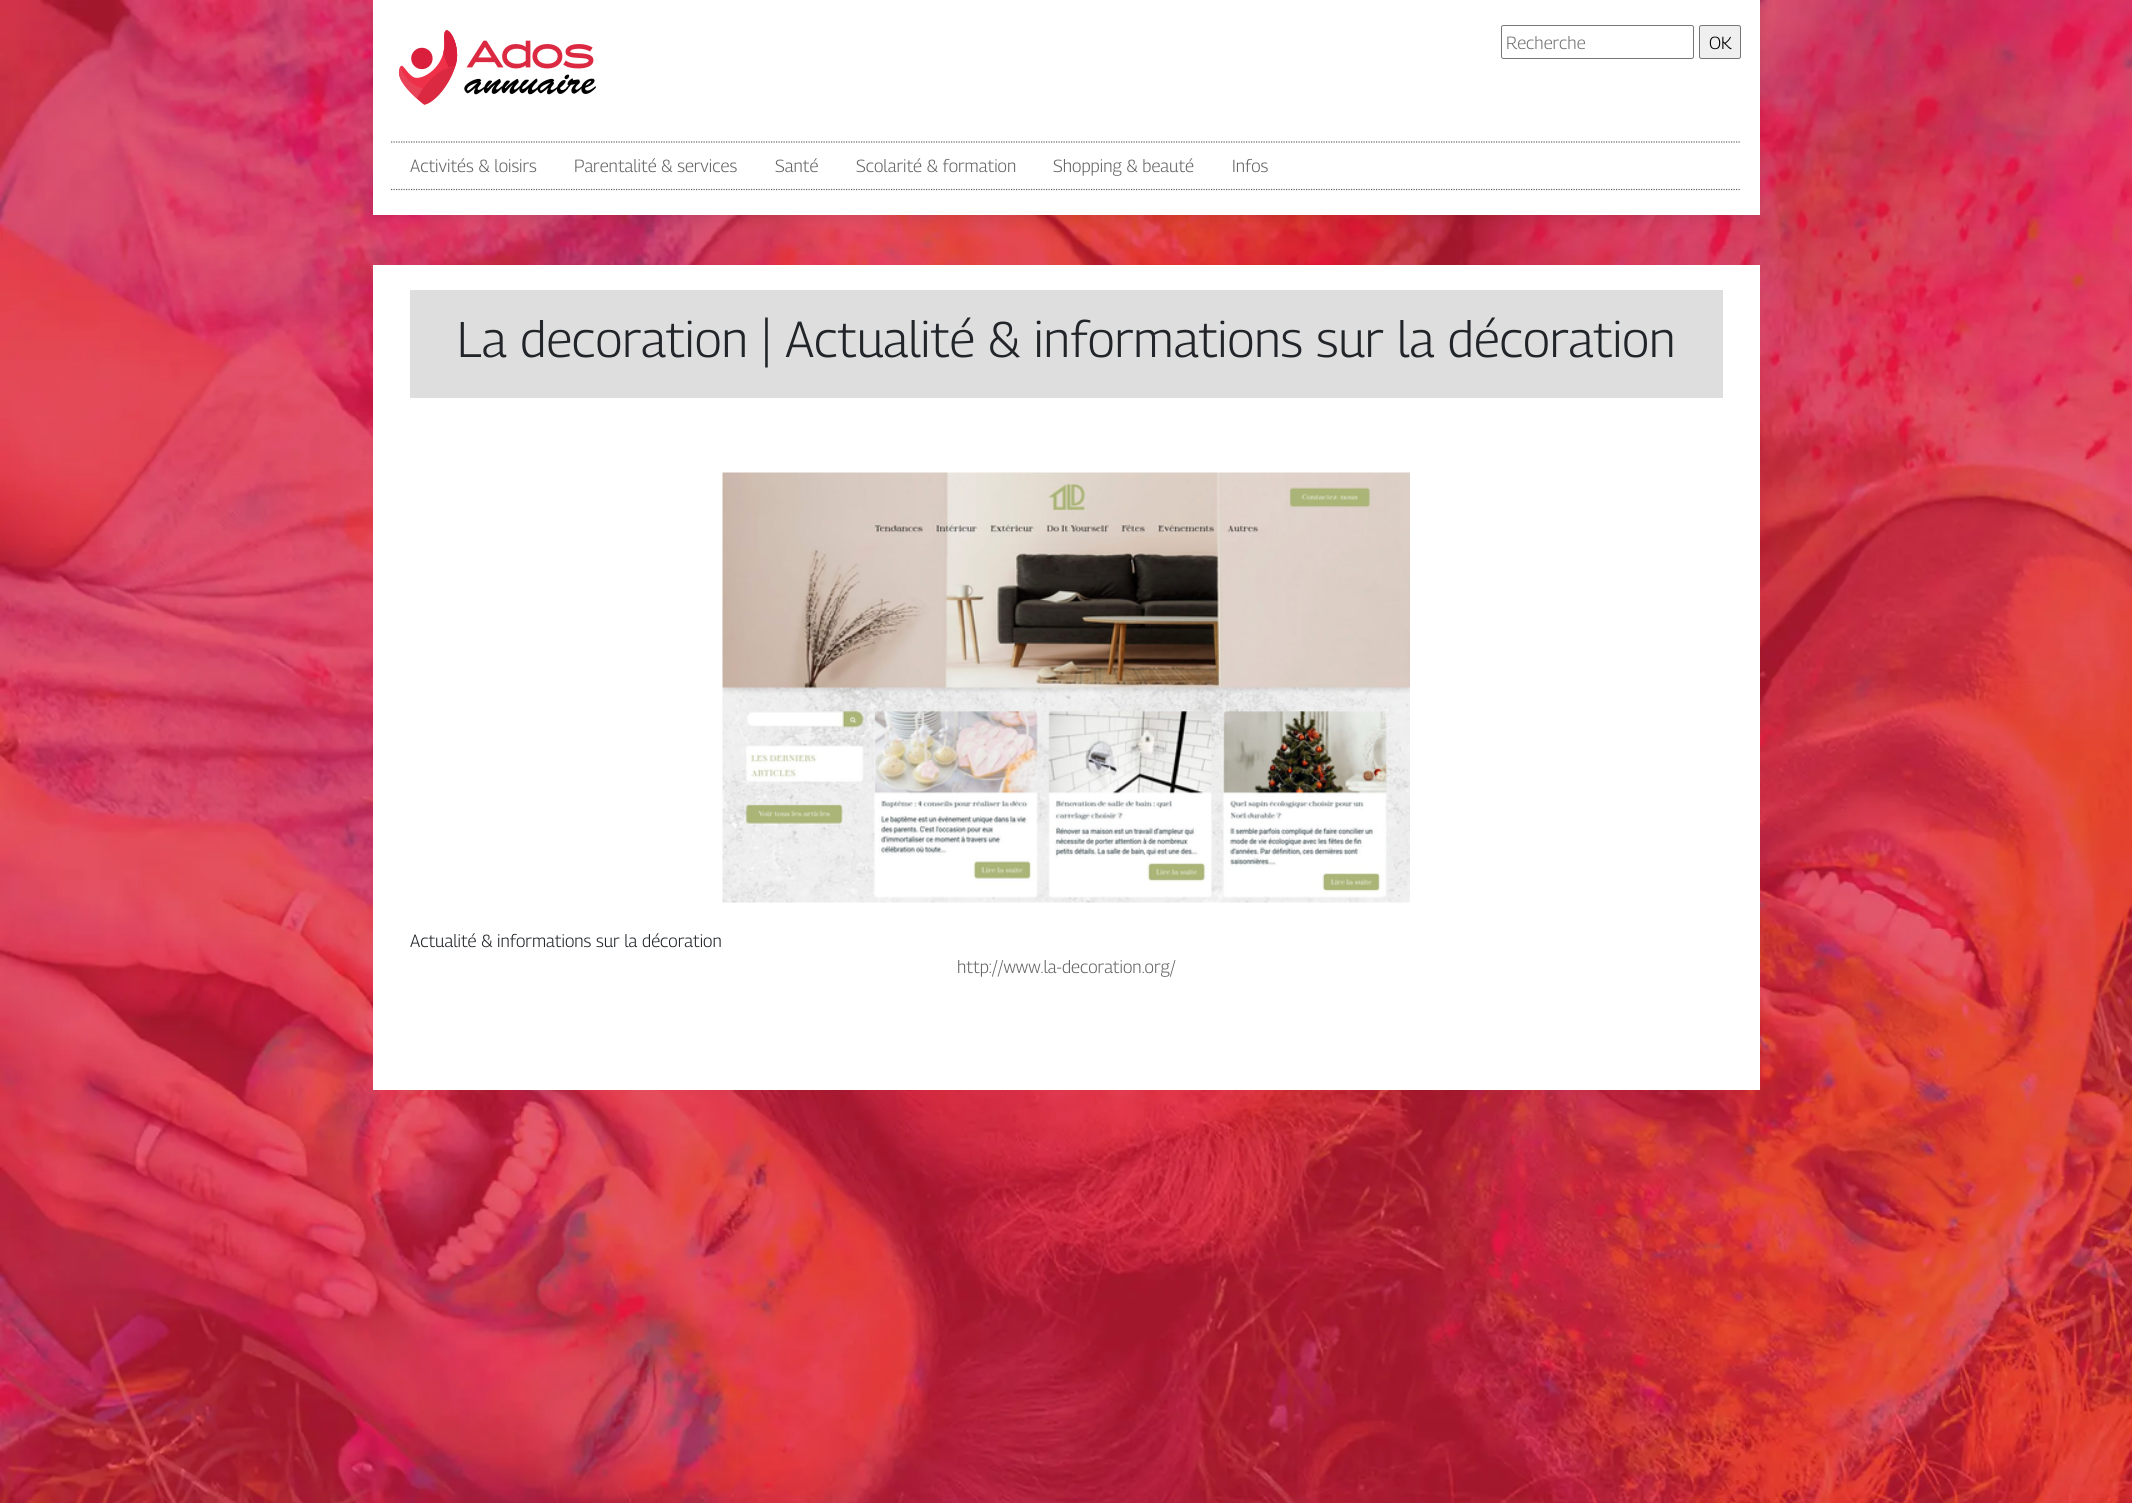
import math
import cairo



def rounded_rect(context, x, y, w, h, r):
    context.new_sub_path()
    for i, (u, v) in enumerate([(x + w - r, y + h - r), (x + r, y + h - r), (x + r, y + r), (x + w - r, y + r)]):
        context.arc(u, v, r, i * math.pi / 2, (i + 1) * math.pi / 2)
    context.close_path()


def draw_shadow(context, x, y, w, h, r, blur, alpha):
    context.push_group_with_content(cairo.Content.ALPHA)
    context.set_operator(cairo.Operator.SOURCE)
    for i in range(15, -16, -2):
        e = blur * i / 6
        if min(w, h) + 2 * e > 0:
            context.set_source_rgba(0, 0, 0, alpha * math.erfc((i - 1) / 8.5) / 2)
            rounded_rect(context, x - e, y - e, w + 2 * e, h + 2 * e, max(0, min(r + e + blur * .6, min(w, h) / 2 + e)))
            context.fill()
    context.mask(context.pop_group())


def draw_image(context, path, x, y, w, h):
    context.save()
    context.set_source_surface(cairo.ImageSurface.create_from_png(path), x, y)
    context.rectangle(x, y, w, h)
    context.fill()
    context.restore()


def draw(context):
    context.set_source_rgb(1, 1, 1)
    context.paint()
    draw_image(context, "images/1.png", 0, 0, 2132, 1503)
    context.set_source_rgb(0, 0, 0)
    draw_shadow(context, 373, 3, 1387, 215, 0, 8, 0.1)
    context.set_source_rgb(1, 1, 1)
    context.rectangle(373, 0, 1387, 215)
    context.fill()
    draw_image(context, "images/2.png", 398, 30, 198, 75)
    rounded_rect(context, 1501.5, 25.5, 192, 33, 2)
    context.set_source_rgb(118 / 255, 118 / 255, 118 / 255)
    context.set_line_width(1)
    context.stroke()
    context.set_source_rgb(239 / 255, 239 / 255, 239 / 255)
    rounded_rect(context, 1699.5, 25.5, 41, 33, 2)
    context.fill_preserve()
    context.set_source_rgb(118 / 255, 118 / 255, 118 / 255)
    context.stroke()
    context.new_path()
    context.move_to(391, 142)
    context.line_to(1741, 142)
    context.set_source_rgb(102 / 255, 102 / 255, 102 / 255)
    context.set_line_width(1.2)
    context.set_dash([1.25, 1.25])
    context.stroke()
    context.new_path()
    context.move_to(391, 189.5)
    context.line_to(1741, 189.5)
    context.stroke()
    context.set_source_rgb(1, 1, 1)
    context.rectangle(373, 265, 1387, 825)
    context.fill()
    context.set_source_rgb(222 / 255, 222 / 255, 222 / 255)
    context.rectangle(410, 290, 1313, 108)
    context.fill()
    draw_image(context, "images/3.png", 722, 472, 688, 431)
    context.select_font_face("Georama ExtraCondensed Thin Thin")
    context.set_font_size(17.5)
    context.set_source_rgb(117 / 255, 117 / 255, 117 / 255)
    context.move_to(1506, 49)
    context.show_text("Recherche")
    context.set_source_rgb(0, 0, 0)
    context.move_to(1709, 49)
    context.show_text("OK")
    context.set_source_rgb(102 / 255, 102 / 255, 102 / 255)
    context.move_to(410, 172)
    context.show_text("Activités & loisirs")
    context.move_to(574, 172)
    context.show_text("Parentalité & services")
    context.move_to(775, 172)
    context.show_text("Santé")
    context.move_to(856, 172)
    context.show_text("Scolarité & formation")
    context.move_to(1053, 172)
    context.show_text("Shopping & beauté")
    context.move_to(1232, 172)
    context.show_text("Infos")
    context.set_font_size(50)
    context.set_source_rgb(33 / 255, 37 / 255, 41 / 255)
    context.move_to(457, 357)
    context.show_text("La decoration | Actualité & informations sur la décoration")
    context.set_font_size(17.5)
    context.move_to(410, 947)
    context.show_text("Actualité & informations sur la décoration")
    context.set_source_rgb(102 / 255, 102 / 255, 102 / 255)
    context.move_to(957, 973)
    context.show_text("http://www.la-decoration.org/")


surface = cairo.ImageSurface(cairo.Format.RGB24, 2132, 1503)
context = cairo.Context(surface)
options = cairo.FontOptions()
options.set_hint_metrics(cairo.HintMetrics.OFF)
options.set_hint_style(cairo.HintStyle.NONE)
context.set_font_options(options)
context.set_miter_limit(4)
draw(context)
surface.write_to_png("out.png")
